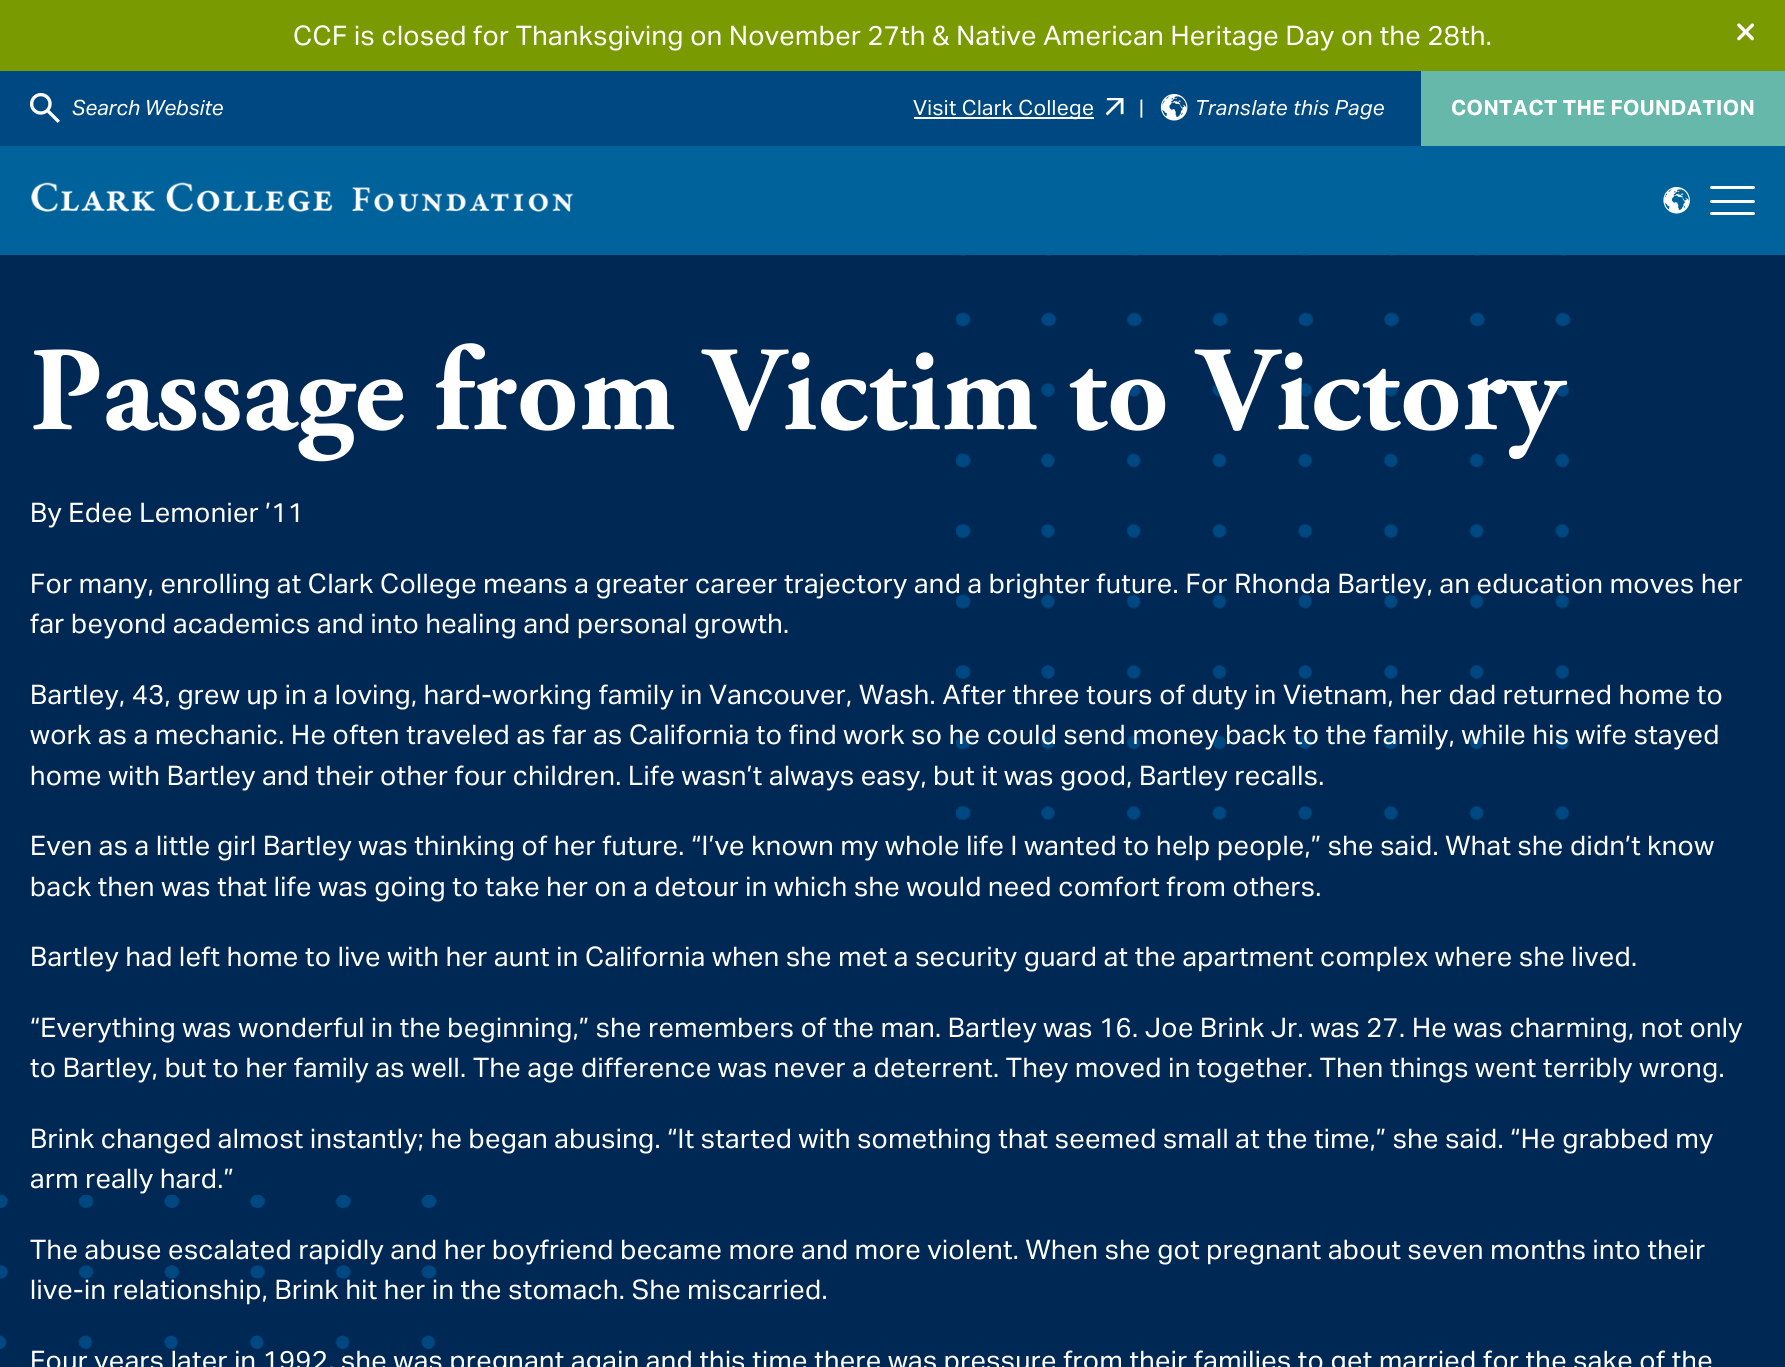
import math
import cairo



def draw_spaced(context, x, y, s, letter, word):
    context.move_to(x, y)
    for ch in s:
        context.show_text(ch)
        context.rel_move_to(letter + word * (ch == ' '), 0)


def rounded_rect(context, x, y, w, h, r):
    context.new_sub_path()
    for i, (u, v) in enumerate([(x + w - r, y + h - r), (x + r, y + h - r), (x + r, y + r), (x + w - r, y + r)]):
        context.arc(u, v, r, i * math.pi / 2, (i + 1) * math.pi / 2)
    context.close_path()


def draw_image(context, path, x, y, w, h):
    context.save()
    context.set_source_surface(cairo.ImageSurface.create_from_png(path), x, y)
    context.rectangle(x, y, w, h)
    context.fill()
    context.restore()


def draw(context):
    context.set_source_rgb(0, 40 / 255, 85 / 255)
    context.paint()
    context.set_source_rgb(0, 98 / 255, 155 / 255)
    context.rectangle(0, 146, 1785, 109)
    context.fill()
    context.set_source_rgb(122 / 255, 154 / 255, 1 / 255)
    context.rectangle(0, 0, 1785, 71)
    context.fill()
    draw_image(context, "images/1.png", 1737, 23, 17, 18)
    context.set_source_rgb(0, 72 / 255, 129 / 255)
    context.rectangle(0, 71, 1421, 75)
    context.fill()
    draw_image(context, "images/2.png", 30, 93, 30, 30)
    context.set_source_rgb(1, 1, 1)
    context.rectangle(914, 117, 180, 2)
    context.fill()
    draw_image(context, "images/3.png", 1106, 98, 18, 18)
    draw_image(context, "images/4.png", 1160, 94, 28, 27)
    context.set_source_rgb(101 / 255, 184 / 255, 170 / 255)
    context.rectangle(1421, 71, 364, 75)
    context.fill()
    draw_image(context, "images/5.png", 31, 182, 543, 30)
    draw_image(context, "images/6.png", 1663, 187, 27, 27)
    context.set_source_rgb(1, 1, 1)
    rounded_rect(context, 1710, 186, 45, 3, 1.5)
    context.fill()
    rounded_rect(context, 1710, 200, 45, 3, 1.5)
    context.fill()
    rounded_rect(context, 1710, 212, 45, 3, 1.5)
    context.fill()
    draw_image(context, "images/7.png", 956, 255, 615, 565)
    draw_image(context, "images/8.png", 0, 1195, 437, 154)
    context.select_font_face("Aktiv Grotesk")
    context.set_font_size(27)
    draw_spaced(context, 293, 45, "CCF is closed for Thanksgiving on November 27th & Native American Heritage Day on the 28th.", 0.38, 0)
    context.select_font_face("Aktiv Grotesk", cairo.FontSlant.ITALIC)
    context.set_font_size(21)
    context.move_to(72, 115)
    context.show_text("Search Website")
    context.select_font_face("Aktiv Grotesk")
    draw_spaced(context, 913, 115, "Visit Clark College", 0.38, 0)
    draw_spaced(context, 1139, 115, "|", 0.38, 0)
    context.select_font_face("Aktiv Grotesk", cairo.FontSlant.ITALIC)
    draw_spaced(context, 1195, 115, "Translate this Page", 0.38, 0)
    context.select_font_face("Aktiv Grotesk", cairo.FontSlant.NORMAL, cairo.FontWeight.BOLD)
    draw_spaced(context, 1451, 115, "CONTACT THE FOUNDATION", 0.38, 0)
    context.select_font_face("Adobe Garamond", cairo.FontSlant.NORMAL, cairo.FontWeight.BOLD)
    context.set_font_size(120)
    draw_spaced(context, 30, 429, "Passage from Victim to Victory", 0.38, 0)
    context.select_font_face("Aktiv Grotesk")
    context.set_font_size(27)
    draw_spaced(context, 30, 522, "By Edee Lemonier ’11", 0.38, 0)
    draw_spaced(context, 30, 593, "For many, enrolling at Clark College means a greater career trajectory and a brighter future. For Rhonda Bartley, an education moves her", 0.38, 0)
    draw_spaced(context, 30, 633, "far beyond academics and into healing and personal growth.", 0.38, 0)
    draw_spaced(context, 30, 704, "Bartley, 43, grew up in a loving, hard-working family in Vancouver, Wash. After three tours of duty in Vietnam, her dad returned home to", 0.38, 0)
    draw_spaced(context, 30, 744, "work as a mechanic. He often traveled as far as California to find work so he could send money back to the family, while his wife stayed", 0.38, 0)
    draw_spaced(context, 30, 785, "home with Bartley and their other four children. Life wasn’t always easy, but it was good, Bartley recalls.", 0.38, 0)
    draw_spaced(context, 30, 855, "Even as a little girl Bartley was thinking of her future. “I’ve known my whole life I wanted to help people,” she said. What she didn’t know", 0.38, 0)
    draw_spaced(context, 30, 896, "back then was that life was going to take her on a detour in which she would need comfort from others.", 0.38, 0)
    draw_spaced(context, 30, 966, "Bartley had left home to live with her aunt in California when she met a security guard at the apartment complex where she lived.", 0.38, 0)
    draw_spaced(context, 30, 1037, "“Everything was wonderful in the beginning,” she remembers of the man. Bartley was 16. Joe Brink Jr. was 27. He was charming, not only", 0.38, 0)
    draw_spaced(context, 30, 1077, "to Bartley, but to her family as well. The age difference was never a deterrent. They moved in together. Then things went terribly wrong.", 0.38, 0)
    draw_spaced(context, 30, 1148, "Brink changed almost instantly; he began abusing. “It started with something that seemed small at the time,” she said. “He grabbed my", 0.38, 0)
    draw_spaced(context, 30, 1188, "arm really hard.”", 0.38, 0)
    draw_spaced(context, 30, 1259, "The abuse escalated rapidly and her boyfriend became more and more violent. When she got pregnant about seven months into their", 0.38, 0)
    draw_spaced(context, 30, 1299, "live-in relationship, Brink hit her in the stomach. She miscarried.", 0.38, 0)
    draw_spaced(context, 30, 1370, "Four years later in 1992, she was pregnant again and this time there was pressure from their families to get married for the sake of the", 0.38, 0)


surface = cairo.ImageSurface(cairo.Format.RGB24, 1785, 1367)
context = cairo.Context(surface)
options = cairo.FontOptions()
options.set_hint_metrics(cairo.HintMetrics.OFF)
options.set_hint_style(cairo.HintStyle.NONE)
context.set_font_options(options)
context.set_miter_limit(4)
draw(context)
surface.write_to_png("out.png")
